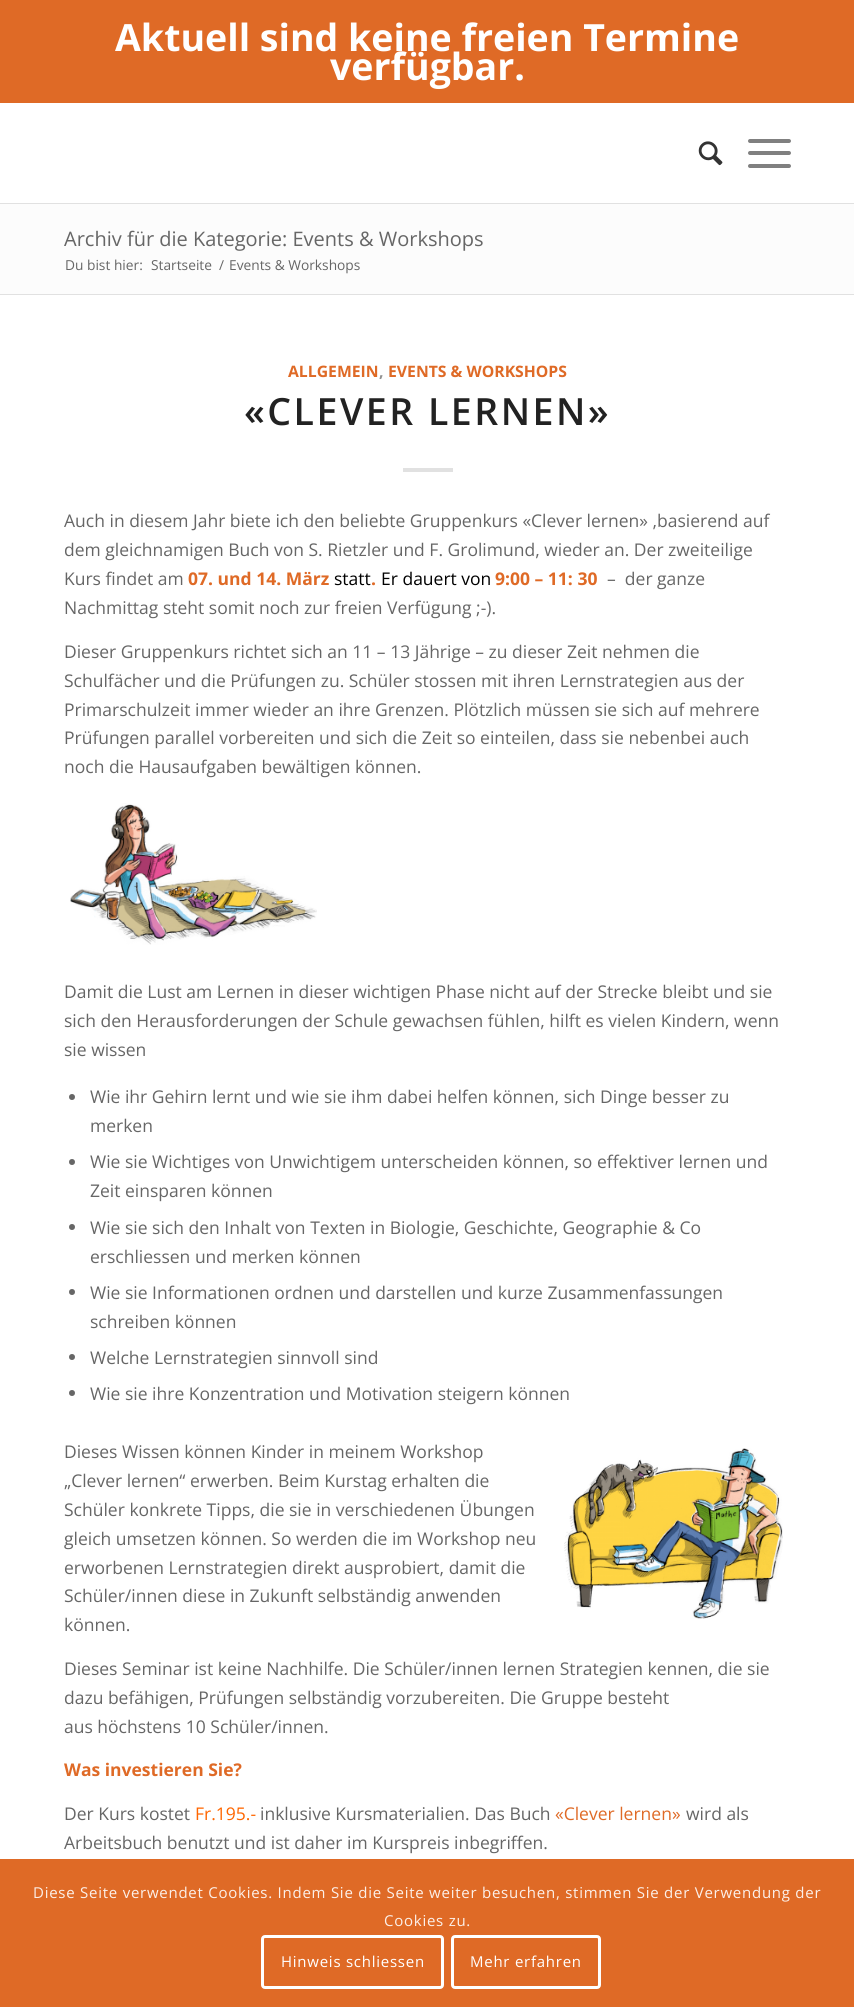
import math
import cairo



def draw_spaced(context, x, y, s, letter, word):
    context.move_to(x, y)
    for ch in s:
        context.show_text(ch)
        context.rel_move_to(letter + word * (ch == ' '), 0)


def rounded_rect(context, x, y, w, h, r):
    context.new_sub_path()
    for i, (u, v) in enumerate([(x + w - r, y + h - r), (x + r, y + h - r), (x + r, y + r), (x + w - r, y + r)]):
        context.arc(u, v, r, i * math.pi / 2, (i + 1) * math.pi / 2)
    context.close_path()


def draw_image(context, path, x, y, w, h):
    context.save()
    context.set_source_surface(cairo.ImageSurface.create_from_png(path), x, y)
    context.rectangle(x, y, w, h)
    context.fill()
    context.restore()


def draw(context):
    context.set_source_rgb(1, 1, 1)
    context.paint()
    context.set_source_rgb(223 / 255, 106 / 255, 38 / 255)
    context.rectangle(0, 0, 854, 103)
    context.fill()
    context.set_source_rgb(225 / 255, 225 / 255, 225 / 255)
    context.rectangle(0, 203, 854, 1)
    context.fill()
    draw_image(context, "images/1.png", 698, 141, 25, 25)
    context.set_source_rgb(128 / 255, 128 / 255, 128 / 255)
    rounded_rect(context, 748, 151, 43, 4, 2)
    context.fill()
    rounded_rect(context, 748, 139, 43, 4, 2)
    context.fill()
    rounded_rect(context, 748, 164, 43, 4, 2)
    context.fill()
    context.set_source_rgb(252 / 255, 252 / 255, 252 / 255)
    context.rectangle(0, 204, 854, 90)
    context.fill()
    context.set_source_rgb(225 / 255, 225 / 255, 225 / 255)
    context.rectangle(0, 294, 854, 1)
    context.fill()
    context.rectangle(403, 468, 50, 4)
    context.fill()
    draw_image(context, "images/2.png", 70, 803, 247, 142)
    context.set_source_rgb(102 / 255, 102 / 255, 102 / 255)
    context.arc(72, 1097, 3, 0, 2 * math.pi)
    context.fill()
    context.arc(72, 1162, 3, 0, 2 * math.pi)
    context.fill()
    context.arc(72, 1227, 3, 0, 2 * math.pi)
    context.fill()
    context.arc(72, 1292, 3, 0, 2 * math.pi)
    context.fill()
    context.arc(72, 1357, 3, 0, 2 * math.pi)
    context.fill()
    context.arc(72, 1393, 3, 0, 2 * math.pi)
    context.fill()
    draw_image(context, "images/3.png", 564, 1448, 219, 171)
    context.set_source_rgb(223 / 255, 106 / 255, 38 / 255)
    context.rectangle(0, 1859, 854, 148)
    context.fill()
    rounded_rect(context, 262.5, 1936.5, 180, 51, 2.5)
    context.set_source_rgb(1, 1, 1)
    context.set_line_width(3)
    context.stroke()
    rounded_rect(context, 452.5, 1936.5, 147, 51, 2.5)
    context.stroke()
    context.select_font_face("Open Sans", cairo.FontSlant.NORMAL, cairo.FontWeight.BOLD)
    context.set_font_size(37.5)
    context.move_to(115, 51)
    context.show_text("Aktuell sind keine freien Termine")
    context.move_to(330, 80)
    context.show_text("verfügbar.")
    context.select_font_face("Open Sans")
    context.set_font_size(20)
    context.set_source_rgb(102 / 255, 102 / 255, 102 / 255)
    context.move_to(64, 246)
    context.show_text("Archiv für die Kategorie: Events & Workshops")
    context.set_font_size(13.75)
    context.move_to(65, 270)
    context.show_text("Du bist hier:")
    context.move_to(151, 270)
    context.show_text("Startseite")
    context.move_to(219, 270)
    context.show_text("/")
    context.move_to(229, 270)
    context.show_text("Events & Workshops")
    context.select_font_face("Open Sans", cairo.FontSlant.NORMAL, cairo.FontWeight.BOLD)
    context.set_font_size(15.75)
    context.set_source_rgb(223 / 255, 106 / 255, 38 / 255)
    context.move_to(288, 377)
    context.show_text("ALLGEMEIN")
    context.set_source_rgb(145 / 255, 145 / 255, 145 / 255)
    context.move_to(379, 377)
    context.show_text(",")
    context.set_source_rgb(223 / 255, 106 / 255, 38 / 255)
    context.move_to(388, 377)
    context.show_text("EVENTS & WORKSHOPS")
    context.select_font_face("Open Sans SemiBold")
    context.set_font_size(37.5)
    context.set_source_rgb(34 / 255, 34 / 255, 34 / 255)
    draw_spaced(context, 244, 425, "«CLEVER LERNEN»", 2.5, 0)
    context.select_font_face("Open Sans")
    context.set_font_size(17.5)
    context.set_source_rgb(102 / 255, 102 / 255, 102 / 255)
    context.move_to(64, 527)
    context.show_text("Auch in diesem Jahr biete ich den beliebte Gruppenkurs «Clever lernen» ,basierend auf")
    context.move_to(64, 556)
    context.show_text("dem gleichnamigen Buch von S. Rietzler und F. Grolimund, wieder an. Der zweiteilige")
    context.move_to(64, 585)
    context.show_text("Kurs findet am")
    context.select_font_face("Open Sans", cairo.FontSlant.NORMAL, cairo.FontWeight.BOLD)
    context.set_source_rgb(223 / 255, 106 / 255, 38 / 255)
    context.move_to(188, 585)
    context.show_text("07. und 14. März")
    context.select_font_face("Open Sans")
    context.set_source_rgb(0, 0, 0)
    context.move_to(334, 585)
    context.show_text("statt")
    context.select_font_face("Open Sans", cairo.FontSlant.NORMAL, cairo.FontWeight.BOLD)
    context.set_source_rgb(223 / 255, 106 / 255, 38 / 255)
    context.move_to(371, 585)
    context.show_text(".")
    context.select_font_face("Open Sans")
    context.set_source_rgb(0, 0, 0)
    context.move_to(381, 585)
    context.show_text("Er dauert von")
    context.select_font_face("Open Sans", cairo.FontSlant.NORMAL, cairo.FontWeight.BOLD)
    context.set_source_rgb(223 / 255, 106 / 255, 38 / 255)
    context.move_to(495, 585)
    context.show_text("9:00 – 11: 30")
    context.select_font_face("Open Sans")
    context.set_source_rgb(102 / 255, 102 / 255, 102 / 255)
    context.move_to(607, 585)
    context.show_text("–  der ganze")
    context.move_to(64, 614)
    context.show_text("Nachmittag steht somit noch zur freien Verfügung ;-).")
    context.move_to(64, 658)
    context.show_text("Dieser Gruppenkurs richtet sich an 11 – 13 Jährige – zu dieser Zeit nehmen die")
    context.move_to(64, 687)
    context.show_text("Schulfächer und die Prüfungen zu. Schüler stossen mit ihren Lernstrategien aus der")
    context.move_to(64, 716)
    context.show_text("Primarschulzeit immer wieder an ihre Grenzen. Plötzlich müssen sie sich auf mehrere")
    context.move_to(64, 744)
    context.show_text("Prüfungen parallel vorbereiten und sich die Zeit so einteilen, dass sie nebenbei auch")
    context.move_to(64, 773)
    context.show_text("noch die Hausaufgaben bewältigen können.")
    context.move_to(64, 998)
    context.show_text("Damit die Lust am Lernen in dieser wichtigen Phase nicht auf der Strecke bleibt und sie")
    context.move_to(64, 1027)
    context.show_text("sich den Herausforderungen der Schule gewachsen fühlen, hilft es vielen Kindern, wenn")
    context.move_to(64, 1056)
    context.show_text("sie wissen")
    context.move_to(90, 1103)
    context.show_text("Wie ihr Gehirn lernt und wie sie ihm dabei helfen können, sich Dinge besser zu")
    context.move_to(90, 1132)
    context.show_text("merken")
    context.move_to(90, 1168)
    context.show_text("Wie sie Wichtiges von Unwichtigem unterscheiden können, so effektiver lernen und")
    context.move_to(90, 1197)
    context.show_text("Zeit einsparen können")
    context.move_to(90, 1234)
    context.show_text("Wie sie sich den Inhalt von Texten in Biologie, Geschichte, Geographie & Co")
    context.move_to(90, 1263)
    context.show_text("erschliessen und merken können")
    context.move_to(90, 1299)
    context.show_text("Wie sie Informationen ordnen und darstellen und kurze Zusammenfassungen")
    context.move_to(90, 1328)
    context.show_text("schreiben können")
    context.move_to(90, 1364)
    context.show_text("Welche Lernstrategien sinnvoll sind")
    context.move_to(90, 1400)
    context.show_text("Wie sie ihre Konzentration und Motivation steigern können")
    context.move_to(64, 1458)
    context.show_text("Dieses Wissen können Kinder in meinem Workshop")
    context.move_to(64, 1487)
    context.show_text("„Clever lernen“ erwerben. Beim Kurstag erhalten die")
    context.move_to(64, 1516)
    context.show_text("Schüler konkrete Tipps, die sie in verschiedenen Übungen")
    context.move_to(64, 1545)
    context.show_text("gleich umsetzen können. So werden die im Workshop neu")
    context.move_to(64, 1574)
    context.show_text("erworbenen Lernstrategien direkt ausprobiert, damit die")
    context.move_to(64, 1602)
    context.show_text("Schüler/innen diese in Zukunft selbständig anwenden")
    context.move_to(64, 1631)
    context.show_text("können.")
    context.move_to(64, 1675)
    context.show_text("Dieses Seminar ist keine Nachhilfe. Die Schüler/innen lernen Strategien kennen, die sie")
    context.move_to(64, 1704)
    context.show_text("dazu befähigen, Prüfungen selbständig vorzubereiten. Die Gruppe besteht")
    context.move_to(64, 1733)
    context.show_text("aus höchstens 10 Schüler/innen.")
    context.select_font_face("Open Sans", cairo.FontSlant.NORMAL, cairo.FontWeight.BOLD)
    context.set_source_rgb(223 / 255, 106 / 255, 38 / 255)
    context.move_to(64, 1776)
    context.show_text("Was investieren Sie?")
    context.select_font_face("Open Sans")
    context.set_source_rgb(102 / 255, 102 / 255, 102 / 255)
    context.move_to(64, 1820)
    context.show_text("Der Kurs kostet")
    context.set_source_rgb(1, 102 / 255, 0)
    context.move_to(195, 1820)
    context.show_text("Fr.195.-")
    context.set_source_rgb(102 / 255, 102 / 255, 102 / 255)
    context.move_to(260, 1820)
    context.show_text("inklusive Kursmaterialien. Das Buch")
    context.set_source_rgb(223 / 255, 106 / 255, 38 / 255)
    context.move_to(555, 1820)
    context.show_text("«Clever lernen»")
    context.set_source_rgb(102 / 255, 102 / 255, 102 / 255)
    context.move_to(686, 1820)
    context.show_text("wird als")
    context.move_to(64, 1849)
    context.show_text("Arbeitsbuch benutzt und ist daher im Kurspreis inbegriffen.")
    context.set_font_size(15)
    context.set_source_rgb(252 / 255, 240 / 255, 233 / 255)
    draw_spaced(context, 33, 1898, "Diese Seite verwendet Cookies. Indem Sie die Seite weiter besuchen, stimmen Sie der Verwendung der", 0.75, 0)
    draw_spaced(context, 384, 1926, "Cookies zu.", 0.75, 0)
    context.set_source_rgb(1, 1, 1)
    draw_spaced(context, 281, 1967, "Hinweis schliessen", 0.75, 0)
    draw_spaced(context, 470, 1967, "Mehr erfahren", 0.75, 0)


surface = cairo.ImageSurface(cairo.Format.RGB24, 854, 2007)
context = cairo.Context(surface)
options = cairo.FontOptions()
options.set_hint_metrics(cairo.HintMetrics.OFF)
options.set_hint_style(cairo.HintStyle.NONE)
context.set_font_options(options)
context.set_miter_limit(4)
draw(context)
surface.write_to_png("out.png")
